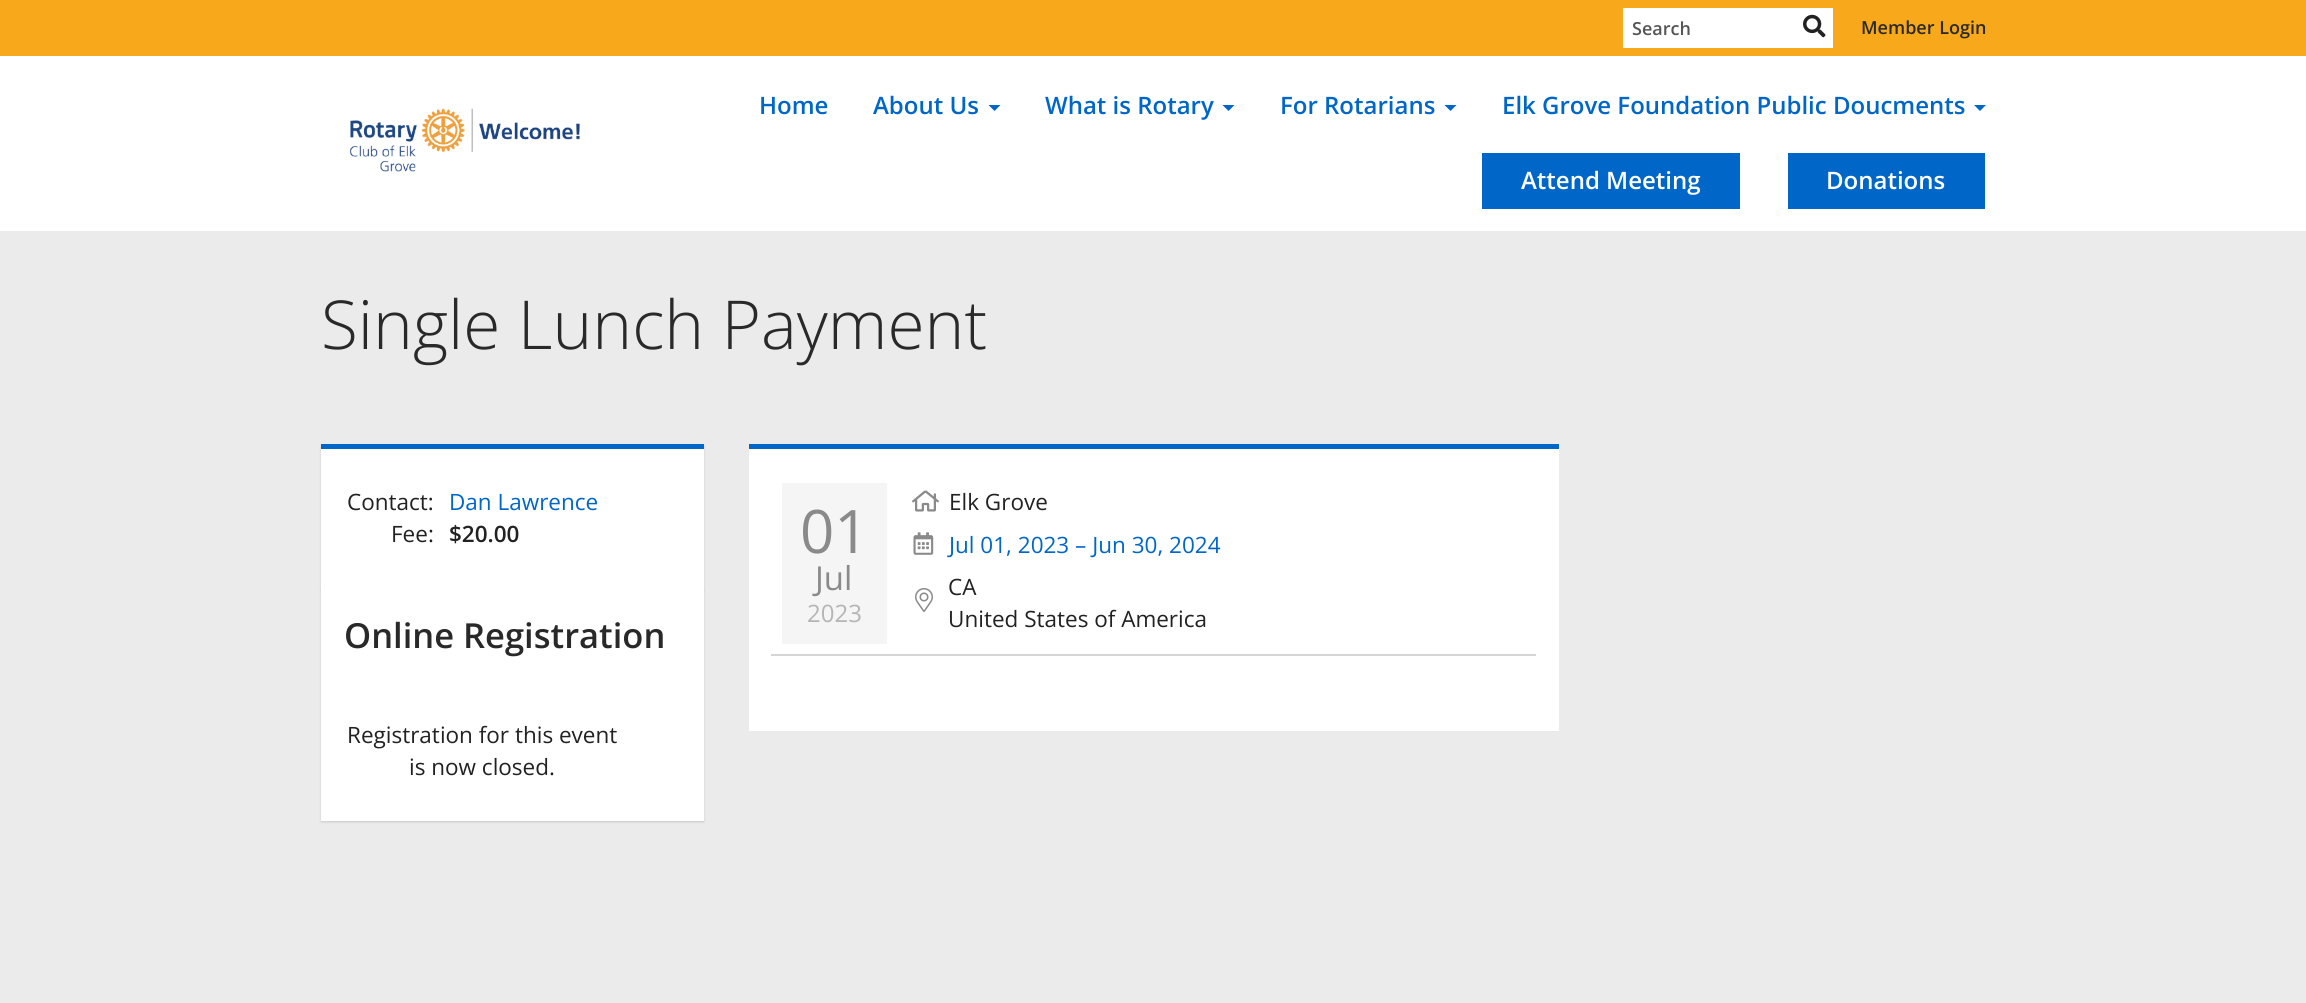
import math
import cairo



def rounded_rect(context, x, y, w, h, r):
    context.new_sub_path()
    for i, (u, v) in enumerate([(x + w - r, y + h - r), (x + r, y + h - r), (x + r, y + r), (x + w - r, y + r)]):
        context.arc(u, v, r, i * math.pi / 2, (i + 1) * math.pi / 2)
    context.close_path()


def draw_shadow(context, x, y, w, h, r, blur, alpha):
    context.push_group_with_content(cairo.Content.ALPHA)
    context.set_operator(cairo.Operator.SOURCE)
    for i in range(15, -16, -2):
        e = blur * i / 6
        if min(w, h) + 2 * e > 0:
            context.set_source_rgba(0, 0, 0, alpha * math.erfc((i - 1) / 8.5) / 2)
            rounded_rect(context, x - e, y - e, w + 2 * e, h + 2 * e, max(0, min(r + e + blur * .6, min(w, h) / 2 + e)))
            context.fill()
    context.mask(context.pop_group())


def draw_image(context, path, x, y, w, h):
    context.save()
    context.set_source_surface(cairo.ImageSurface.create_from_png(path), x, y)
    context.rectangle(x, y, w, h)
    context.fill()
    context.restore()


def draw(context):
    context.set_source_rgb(235 / 255, 235 / 255, 235 / 255)
    context.paint()
    context.set_source_rgb(247 / 255, 168 / 255, 27 / 255)
    context.rectangle(0, 0, 2306, 56)
    context.fill()
    context.set_source_rgb(1, 1, 1)
    context.rectangle(1623, 8, 210, 40)
    context.fill()
    draw_image(context, "images/1.png", 1803, 14, 23, 24)
    context.rectangle(0, 56, 2306, 175)
    context.fill()
    draw_image(context, "images/2.png", 350, 108, 230, 64)
    context.set_source_rgb(0, 103 / 255, 200 / 255)
    context.new_path()
    context.move_to(988.5, 105)
    context.line_to(1000.5, 105)
    context.line_to(994.5, 111)
    context.close_path()
    context.fill()
    context.new_path()
    context.move_to(1222.5, 105)
    context.line_to(1234.5, 105)
    context.line_to(1228.5, 111)
    context.close_path()
    context.fill()
    context.new_path()
    context.move_to(1444.5, 105)
    context.line_to(1456.5, 105)
    context.line_to(1450.5, 111)
    context.close_path()
    context.fill()
    context.new_path()
    context.move_to(1974, 105)
    context.line_to(1986, 105)
    context.line_to(1980, 111)
    context.close_path()
    context.fill()
    context.rectangle(1482, 153, 258, 56)
    context.fill()
    context.rectangle(1788, 153, 197, 56)
    context.fill()
    context.set_source_rgb(0, 0, 0)
    draw_shadow(context, 321, 446, 383, 144, 0, 1, 0.15)
    context.set_source_rgb(1, 1, 1)
    context.rectangle(321, 449, 383, 139)
    context.fill()
    context.set_source_rgb(0, 103 / 255, 200 / 255)
    context.rectangle(321, 444, 383, 5)
    context.fill()
    context.set_source_rgb(0, 0, 0)
    draw_shadow(context, 321, 590, 383, 232, 0, 1, 0.15)
    context.set_source_rgb(1, 1, 1)
    context.rectangle(321, 588, 383, 233)
    context.fill()
    context.rectangle(749, 449, 810, 282)
    context.fill()
    context.set_source_rgb(0, 103 / 255, 200 / 255)
    context.rectangle(749, 444, 810, 5)
    context.fill()
    context.set_source_rgb(213 / 255, 213 / 255, 213 / 255)
    context.rectangle(771, 654, 765, 2)
    context.fill()
    draw_image(context, "images/3.png", 912, 490, 27, 22)
    context.set_source_rgb(245 / 255, 245 / 255, 245 / 255)
    context.rectangle(782, 483, 105, 161)
    context.fill()
    draw_image(context, "images/4.png", 913, 532, 21, 23)
    draw_image(context, "images/5.png", 915, 588, 18, 24)
    context.select_font_face("Open Sans SemiBold")
    context.set_font_size(18)
    context.set_source_rgb(85 / 255, 85 / 255, 85 / 255)
    context.move_to(1632, 35)
    context.show_text("Search")
    context.set_source_rgb(41 / 255, 41 / 255, 41 / 255)
    context.move_to(1861, 34)
    context.show_text("Member Login")
    context.set_font_size(24)
    context.set_source_rgb(0, 103 / 255, 200 / 255)
    context.move_to(759, 114)
    context.show_text("Home")
    context.move_to(873, 114)
    context.show_text("About Us")
    context.move_to(1045, 114)
    context.show_text("What is Rotary")
    context.move_to(1280, 114)
    context.show_text("For Rotarians")
    context.move_to(1502, 114)
    context.show_text("Elk Grove Foundation Public Doucments")
    context.set_source_rgb(1, 1, 1)
    context.move_to(1521, 189)
    context.show_text("Attend Meeting")
    context.move_to(1826, 189)
    context.show_text("Donations")
    context.select_font_face("Open Sans Light")
    context.set_font_size(67.5)
    context.set_source_rgb(41 / 255, 41 / 255, 41 / 255)
    context.move_to(321, 349)
    context.show_text("Single Lunch Payment")
    context.select_font_face("Open Sans")
    context.set_font_size(22.5)
    context.set_source_rgb(34 / 255, 34 / 255, 34 / 255)
    context.move_to(347, 510)
    context.show_text("Contact:")
    context.set_source_rgb(0, 103 / 255, 200 / 255)
    context.move_to(449, 510)
    context.show_text("Dan Lawrence")
    context.set_source_rgb(34 / 255, 34 / 255, 34 / 255)
    context.move_to(391, 542)
    context.show_text("Fee:")
    context.select_font_face("Open Sans SemiBold")
    context.move_to(449, 542)
    context.show_text("$20.00")
    context.set_font_size(34.5)
    context.set_source_rgb(41 / 255, 41 / 255, 41 / 255)
    context.move_to(344, 648)
    context.show_text("Online Registration")
    context.select_font_face("Open Sans")
    context.set_font_size(22.5)
    context.set_source_rgb(34 / 255, 34 / 255, 34 / 255)
    context.move_to(347, 743)
    context.show_text("Registration for this event")
    context.move_to(409, 775)
    context.show_text("is now closed.")
    context.move_to(949, 510)
    context.show_text("Elk Grove")
    context.set_font_size(60)
    context.set_source_rgb(138 / 255, 138 / 255, 138 / 255)
    context.move_to(800, 553)
    context.show_text("01")
    context.set_font_size(33)
    context.move_to(815, 590)
    context.show_text("Jul")
    context.set_font_size(24)
    context.set_source_rgb(181 / 255, 181 / 255, 181 / 255)
    context.move_to(807, 622)
    context.show_text("2023")
    context.set_font_size(22.5)
    context.set_source_rgb(0, 103 / 255, 200 / 255)
    context.move_to(949, 553)
    context.show_text("Jul 01, 2023 – Jun 30, 2024")
    context.set_source_rgb(34 / 255, 34 / 255, 34 / 255)
    context.move_to(948, 595)
    context.show_text("CA")
    context.move_to(948, 627)
    context.show_text("United States of America")


surface = cairo.ImageSurface(cairo.Format.RGB24, 2306, 1003)
context = cairo.Context(surface)
options = cairo.FontOptions()
options.set_hint_metrics(cairo.HintMetrics.OFF)
options.set_hint_style(cairo.HintStyle.NONE)
context.set_font_options(options)
context.set_miter_limit(4)
draw(context)
surface.write_to_png("out.png")
